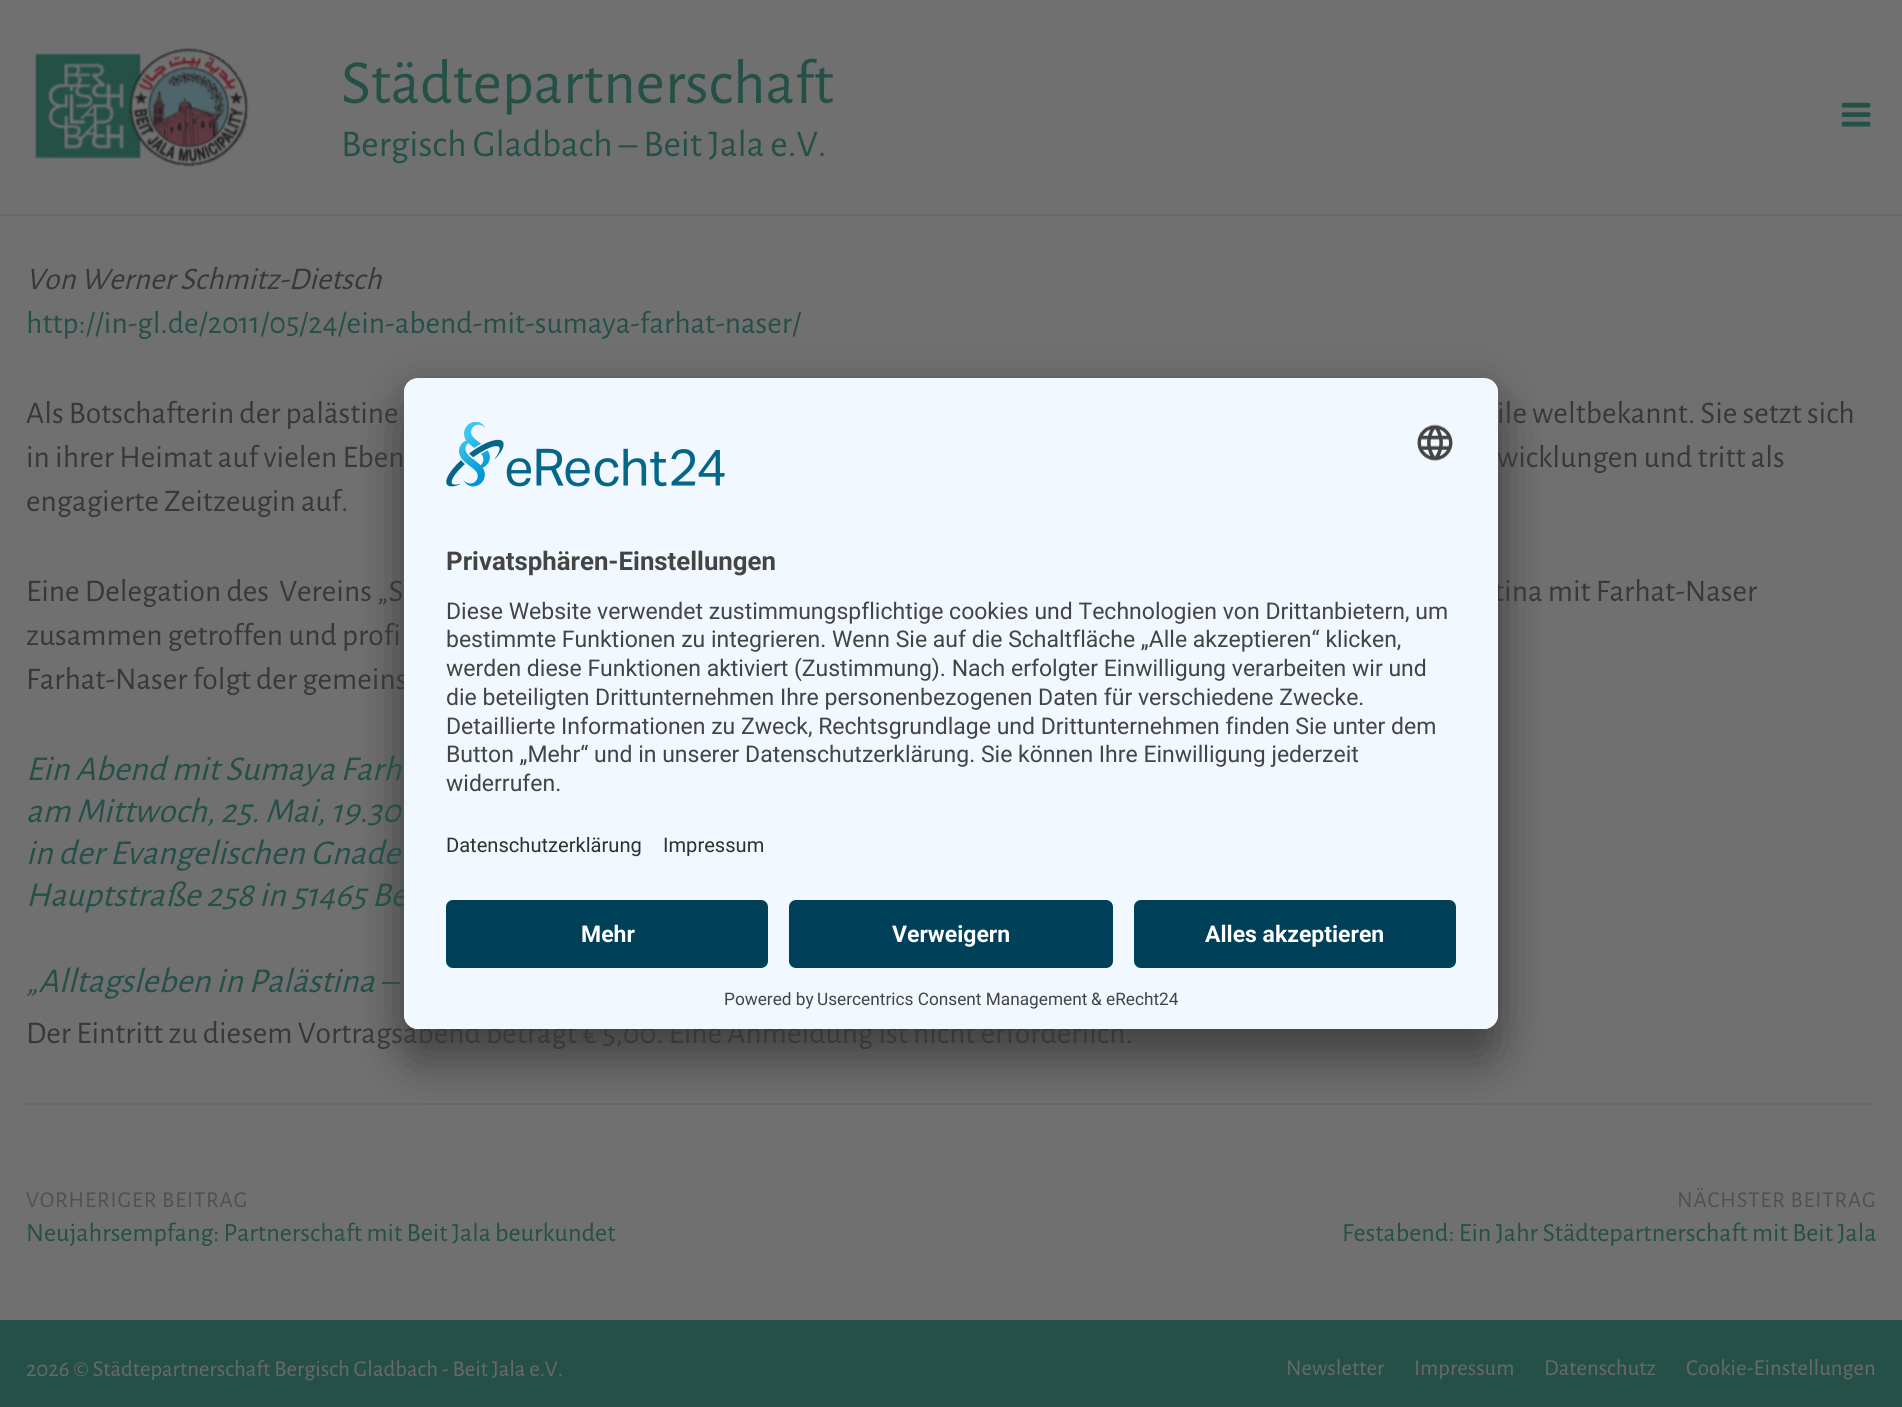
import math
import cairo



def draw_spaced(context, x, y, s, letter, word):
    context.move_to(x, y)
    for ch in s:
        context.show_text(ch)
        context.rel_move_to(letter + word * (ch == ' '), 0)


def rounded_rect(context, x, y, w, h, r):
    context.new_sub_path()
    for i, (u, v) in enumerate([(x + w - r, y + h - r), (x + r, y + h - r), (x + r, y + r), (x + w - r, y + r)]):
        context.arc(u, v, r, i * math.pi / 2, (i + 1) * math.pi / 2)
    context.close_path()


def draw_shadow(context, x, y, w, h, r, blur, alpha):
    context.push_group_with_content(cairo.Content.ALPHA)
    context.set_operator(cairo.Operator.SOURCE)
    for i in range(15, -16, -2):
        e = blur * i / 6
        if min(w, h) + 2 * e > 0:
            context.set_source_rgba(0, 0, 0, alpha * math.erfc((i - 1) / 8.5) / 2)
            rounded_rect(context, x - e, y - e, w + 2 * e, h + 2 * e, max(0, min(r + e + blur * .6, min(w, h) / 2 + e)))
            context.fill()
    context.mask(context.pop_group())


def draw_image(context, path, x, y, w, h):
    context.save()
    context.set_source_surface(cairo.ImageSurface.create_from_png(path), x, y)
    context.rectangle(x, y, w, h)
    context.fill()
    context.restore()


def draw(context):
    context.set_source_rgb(112 / 255, 112 / 255, 112 / 255)
    context.paint()
    context.set_source_rgb(105 / 255, 105 / 255, 105 / 255)
    context.rectangle(0, 214, 1902, 2)
    context.fill()
    draw_image(context, "images/1.png", 35, 48, 214, 119)
    draw_image(context, "images/2.png", 1841, 102, 30, 25)
    context.rectangle(26, 1103, 1850, 2)
    context.fill()
    context.set_source_rgb(36 / 255, 80 / 255, 71 / 255)
    context.rectangle(0, 1320, 1902, 87)
    context.fill()
    context.set_source_rgb(0, 0, 0)
    draw_shadow(context, 404, 413, 1094, 651, 14, 24.5, 0.3)
    draw_shadow(context, 404, 387, 1094, 651, 14, 23, 0.22)
    context.select_font_face("Alegreya Sans")
    context.set_font_size(63)
    context.set_source_rgb(36 / 255, 80 / 255, 71 / 255)
    context.move_to(341, 103)
    context.show_text("Städtepartnerschaft")
    context.set_font_size(37.75)
    context.move_to(341, 156)
    context.show_text("Bergisch Gladbach – Beit Jala e.V.")
    context.select_font_face("Alegreya Sans", cairo.FontSlant.ITALIC)
    context.set_font_size(31.5)
    context.set_source_rgb(56 / 255, 56 / 255, 56 / 255)
    context.move_to(26, 289)
    context.show_text("Von Werner Schmitz-Dietsch")
    context.select_font_face("Alegreya Sans")
    context.set_source_rgb(36 / 255, 80 / 255, 71 / 255)
    context.move_to(26, 333)
    context.show_text("http://in-gl.de/2011/05/24/ein-abend-mit-sumaya-farhat-naser/")
    context.set_source_rgb(56 / 255, 56 / 255, 56 / 255)
    context.move_to(26, 423)
    context.show_text("Als Botschafterin der palästine")
    context.move_to(1497, 423)
    context.show_text("ile weltbekannt. Sie setzt sich")
    context.move_to(26, 467)
    context.show_text("in ihrer Heimat auf vielen Eben")
    context.move_to(1497, 467)
    context.show_text("wicklungen und tritt als")
    context.move_to(26, 511)
    context.show_text("engagierte Zeitzeugin auf.")
    context.move_to(26, 601)
    context.show_text("Eine Delegation des  Vereins „S")
    context.move_to(1494, 601)
    context.show_text("tina mit Farhat-Naser")
    context.move_to(26, 645)
    context.show_text("zusammen getroffen und profi")
    context.move_to(26, 689)
    context.show_text("Farhat-Naser folgt der gemeins")
    context.select_font_face("Alegreya Sans", cairo.FontSlant.ITALIC)
    context.set_font_size(35)
    context.set_source_rgb(36 / 255, 80 / 255, 71 / 255)
    context.move_to(26, 780)
    context.show_text("Ein Abend mit Sumaya Farh")
    context.move_to(26, 822)
    context.show_text("am Mittwoch, 25. Mai, 19.30")
    context.move_to(26, 864)
    context.show_text("in der Evangelischen Gnade")
    context.move_to(26, 906)
    context.show_text("Hauptstraße 258 in 51465 Be")
    context.move_to(26, 992)
    context.show_text("„Alltagsleben in Palästina –")
    context.select_font_face("Alegreya Sans")
    context.set_font_size(31.5)
    context.set_source_rgb(56 / 255, 56 / 255, 56 / 255)
    context.move_to(26, 1043)
    context.show_text("Der Eintritt zu diesem Vortragsabend beträgt € 5,00. Eine Anmeldung ist nicht erforderlich.")
    context.set_font_size(22.75)
    context.set_source_rgb(80 / 255, 80 / 255, 80 / 255)
    draw_spaced(context, 26, 1207, "VORHERIGER BEITRAG", 0.9, 0)
    context.set_font_size(26.25)
    context.set_source_rgb(36 / 255, 80 / 255, 71 / 255)
    context.move_to(26, 1241)
    context.show_text("Neujahrsempfang: Partnerschaft mit Beit Jala beurkundet")
    context.set_font_size(22.75)
    context.set_source_rgb(80 / 255, 80 / 255, 80 / 255)
    draw_spaced(context, 1677, 1207, "NÄCHSTER BEITRAG", 0.9, 0)
    context.set_font_size(26.25)
    context.set_source_rgb(36 / 255, 80 / 255, 71 / 255)
    context.move_to(1342, 1241)
    context.show_text("Festabend: Ein Jahr Städtepartnerschaft mit Beit Jala")
    context.set_font_size(22.75)
    context.set_source_rgb(105 / 255, 105 / 255, 105 / 255)
    context.move_to(26, 1376)
    context.show_text("2026 © Städtepartnerschaft Bergisch Gladbach - Beit Jala e.V.")
    context.move_to(1286, 1375)
    context.show_text("Newsletter")
    context.move_to(1414, 1375)
    context.show_text("Impressum")
    context.move_to(1544, 1375)
    context.show_text("Datenschutz")
    context.move_to(1686, 1375)
    context.show_text("Cookie-Einstellungen")
    context.set_source_rgb(241 / 255, 248 / 255, 1)
    rounded_rect(context, 404, 378, 1094, 651, 14)
    context.fill()
    context.save()
    rounded_rect(context, 404, 378, 1094, 651, 14)
    context.clip()
    context.new_path()
    context.move_to(418, 378)
    context.line_to(1484, 378)
    context.curve_to(1491.5, 378, 1498, 384.5, 1498, 392)
    context.line_to(1498, 886)
    context.line_to(404, 886)
    context.line_to(404, 392)
    context.curve_to(404, 384.5, 410.5, 378, 418, 378)
    context.close_path()
    context.clip()
    context.rectangle(404, 380, 1094, 506)
    context.fill()
    context.restore()
    draw_image(context, "images/3.png", 446, 422, 279, 65)
    draw_image(context, "images/4.png", 1417, 424, 36, 37)
    context.select_font_face("Roboto", cairo.FontSlant.NORMAL, cairo.FontWeight.BOLD)
    context.set_font_size(25.8)
    context.set_source_rgb(68 / 255, 68 / 255, 68 / 255)
    context.move_to(446, 570)
    context.show_text("Privatsphären-Einstellungen")
    context.select_font_face("Roboto")
    context.set_font_size(23)
    context.move_to(446, 619)
    context.show_text("Diese Website verwendet zustimmungspflichtige cookies und Technologien von Drittanbietern, um")
    context.move_to(446, 647)
    context.show_text("bestimmte Funktionen zu integrieren. Wenn Sie auf die Schaltfläche „Alle akzeptieren“ klicken,")
    context.move_to(446, 676)
    context.show_text("werden diese Funktionen aktiviert (Zustimmung). Nach erfolgter Einwilligung verarbeiten wir und")
    context.move_to(446, 705)
    context.show_text("die beteiligten Drittunternehmen Ihre personenbezogenen Daten für verschiedene Zwecke.")
    context.move_to(446, 734)
    context.show_text("Detaillierte Informationen zu Zweck, Rechtsgrundlage und Drittunternehmen finden Sie unter dem")
    context.move_to(446, 762)
    context.show_text("Button „Mehr“ und in unserer Datenschutzerklärung. Sie können Ihre Einwilligung jederzeit")
    context.move_to(446, 791)
    context.show_text("widerrufen.")
    context.set_font_size(20.1)
    context.set_source_rgb(48 / 255, 48 / 255, 48 / 255)
    context.move_to(446, 852)
    context.show_text("Datenschutzerklärung")
    context.move_to(663, 852)
    context.show_text("Impressum")
    context.set_source_rgb(241 / 255, 248 / 255, 1)
    context.new_path()
    context.move_to(404, 886)
    context.line_to(1498, 886)
    context.line_to(1498, 1015)
    context.curve_to(1498, 1022.5, 1491.5, 1029, 1484, 1029)
    context.line_to(418, 1029)
    context.curve_to(410.5, 1029, 404, 1022.5, 404, 1015)
    context.close_path()
    context.fill()
    context.set_source_rgb(0, 64 / 255, 89 / 255)
    rounded_rect(context, 446, 900, 322, 68, 7)
    context.fill()
    context.select_font_face("Roboto", cairo.FontSlant.NORMAL, cairo.FontWeight.BOLD)
    context.set_font_size(23)
    context.set_source_rgb(1, 1, 1)
    context.move_to(581, 942)
    context.show_text("Mehr")
    context.set_source_rgb(0, 64 / 255, 89 / 255)
    rounded_rect(context, 789, 900, 324, 68, 7)
    context.fill()
    context.set_source_rgb(1, 1, 1)
    context.move_to(892, 942)
    context.show_text("Verweigern")
    context.set_source_rgb(0, 64 / 255, 89 / 255)
    rounded_rect(context, 1134, 900, 322, 68, 7)
    context.fill()
    context.set_source_rgb(1, 1, 1)
    context.move_to(1205, 942)
    context.show_text("Alles akzeptieren")
    context.select_font_face("Roboto")
    context.set_font_size(17.25)
    context.set_source_rgb(68 / 255, 68 / 255, 68 / 255)
    context.move_to(724, 1005)
    context.show_text("Powered by")
    context.move_to(817, 1005)
    context.show_text("Usercentrics Consent Management")
    context.move_to(1091, 1005)
    context.show_text("& eRecht24")


surface = cairo.ImageSurface(cairo.Format.RGB24, 1902, 1407)
context = cairo.Context(surface)
options = cairo.FontOptions()
options.set_hint_metrics(cairo.HintMetrics.OFF)
options.set_hint_style(cairo.HintStyle.NONE)
context.set_font_options(options)
context.set_miter_limit(4)
draw(context)
surface.write_to_png("out.png")
